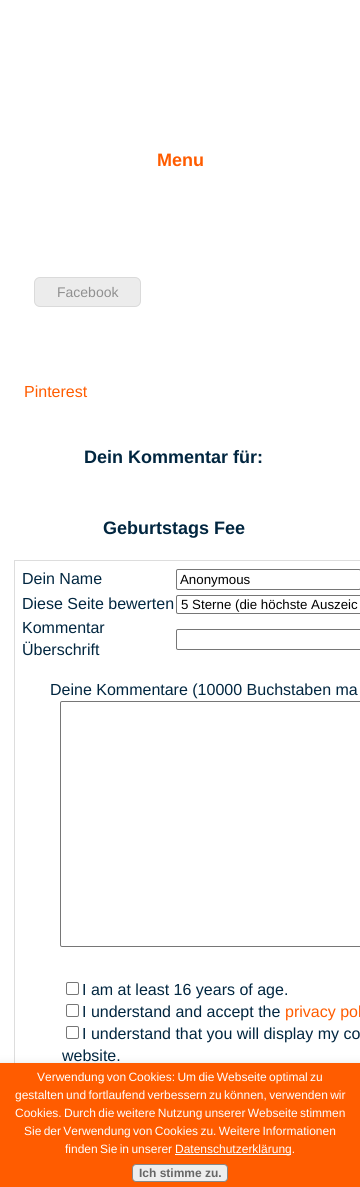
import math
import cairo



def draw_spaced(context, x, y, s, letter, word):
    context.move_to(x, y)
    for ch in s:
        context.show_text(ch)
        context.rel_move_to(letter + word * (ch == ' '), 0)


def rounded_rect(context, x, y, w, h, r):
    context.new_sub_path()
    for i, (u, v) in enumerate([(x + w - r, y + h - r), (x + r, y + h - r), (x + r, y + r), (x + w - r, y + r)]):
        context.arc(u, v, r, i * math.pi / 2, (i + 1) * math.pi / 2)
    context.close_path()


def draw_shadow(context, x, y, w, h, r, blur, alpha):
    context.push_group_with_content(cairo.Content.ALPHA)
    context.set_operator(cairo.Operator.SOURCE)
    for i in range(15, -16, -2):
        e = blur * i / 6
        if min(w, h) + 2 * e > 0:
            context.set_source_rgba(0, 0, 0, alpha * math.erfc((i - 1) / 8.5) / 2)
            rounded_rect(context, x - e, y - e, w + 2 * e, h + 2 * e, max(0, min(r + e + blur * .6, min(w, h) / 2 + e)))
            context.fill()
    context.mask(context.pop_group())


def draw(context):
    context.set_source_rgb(1, 1, 1)
    context.paint()
    context.set_source_rgb(236 / 255, 236 / 255, 236 / 255)
    rounded_rect(context, 34.5, 277.5, 106, 29, 5.5)
    context.fill_preserve()
    context.set_source_rgb(218 / 255, 218 / 255, 218 / 255)
    context.set_line_width(1)
    context.stroke()
    context.rectangle(14.5, 560.5, 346, 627)
    context.set_source_rgb(221 / 255, 221 / 255, 221 / 255)
    context.stroke()
    rounded_rect(context, 176.5, 569.5, 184, 20, 1.5)
    context.set_source_rgb(118 / 255, 118 / 255, 118 / 255)
    context.stroke()
    rounded_rect(context, 176.5, 595.5, 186, 18, 1.5)
    context.stroke()
    rounded_rect(context, 176.5, 629.5, 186, 20, 1.5)
    context.stroke()
    rounded_rect(context, 60.5, 701.5, 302, 245, 1.5)
    context.stroke()
    rounded_rect(context, 66.5, 982.5, 12, 12, 1.5)
    context.stroke()
    rounded_rect(context, 66.5, 1004.5, 12, 12, 1.5)
    context.stroke()
    rounded_rect(context, 66.5, 1026.5, 12, 12, 1.5)
    context.stroke()
    context.set_source_rgb(0, 0, 0)
    draw_shadow(context, -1, 1066, 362, 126, 0, 5, 0.2)
    context.set_source_rgb(1, 92 / 255, 0)
    context.rectangle(0, 1063, 360, 124)
    context.fill()
    context.set_source_rgb(1, 1, 1)
    context.rectangle(175, 1154, 116, 1)
    context.fill()
    context.set_source_rgb(238 / 255, 238 / 255, 238 / 255)
    rounded_rect(context, 132.5, 1164.5, 95, 17, 3.5)
    context.fill_preserve()
    context.set_source_rgb(136 / 255, 136 / 255, 136 / 255)
    context.stroke()
    context.select_font_face("Liberation Sans", cairo.FontSlant.NORMAL, cairo.FontWeight.BOLD)
    context.set_font_size(18)
    context.set_source_rgb(1, 92 / 255, 0)
    context.move_to(157, 166)
    context.show_text("Menu")
    context.select_font_face("Liberation Sans")
    context.set_font_size(14)
    context.set_source_rgb(144 / 255, 144 / 255, 144 / 255)
    context.move_to(57, 297)
    context.show_text("Facebook")
    context.set_font_size(16)
    context.set_source_rgb(1, 92 / 255, 0)
    context.move_to(24, 397)
    context.show_text("Pinterest")
    context.select_font_face("Liberation Sans", cairo.FontSlant.NORMAL, cairo.FontWeight.BOLD)
    context.set_font_size(18)
    context.set_source_rgb(1 / 255, 38 / 255, 64 / 255)
    context.move_to(84, 463)
    context.show_text("Dein Kommentar für:")
    context.move_to(103, 534)
    context.show_text("Geburtstags Fee")
    context.select_font_face("Liberation Sans")
    context.set_font_size(16)
    context.move_to(22, 584)
    context.show_text("Dein Name")
    context.set_font_size(13.3)
    context.set_source_rgb(0, 0, 0)
    context.move_to(180, 584)
    context.show_text("Anonymous")
    context.set_font_size(16)
    context.set_source_rgb(1 / 255, 38 / 255, 64 / 255)
    context.move_to(22, 609)
    context.show_text("Diese Seite bewerten")
    context.set_font_size(13.3)
    context.set_source_rgb(0, 0, 0)
    context.move_to(181, 609)
    context.show_text("5 Sterne (die höchste Auszeic")
    context.set_font_size(16)
    context.set_source_rgb(1 / 255, 38 / 255, 64 / 255)
    context.move_to(22, 633)
    context.show_text("Kommentar")
    context.move_to(22, 655)
    context.show_text("Überschrift")
    context.move_to(50, 695)
    context.show_text("Deine Kommentare (10000 Buchstaben ma")
    context.move_to(82, 995)
    context.show_text("I am at least 16 years of age.")
    context.move_to(82, 1017)
    context.show_text("I understand and accept the")
    context.set_source_rgb(1, 92 / 255, 0)
    context.move_to(285, 1017)
    context.show_text("privacy pol")
    context.set_source_rgb(1 / 255, 38 / 255, 64 / 255)
    context.move_to(82, 1039)
    context.show_text("I understand that you will display my co")
    context.move_to(62, 1061)
    context.show_text("website.")
    context.set_font_size(12)
    context.set_source_rgb(1, 1, 1)
    draw_spaced(context, 37, 1081, "Verwendung von Cookies: Um die Webseite optimal zu", 0, -1)
    draw_spaced(context, 15, 1099, "gestalten und fortlaufend verbessern zu können, verwenden wir", 0, -1)
    draw_spaced(context, 15, 1117, "Cookies. Durch die weitere Nutzung unserer Webseite stimmen", 0, -1)
    draw_spaced(context, 24, 1135, "Sie der Verwendung von Cookies zu. Weitere Informationen", 0, -1)
    draw_spaced(context, 65, 1153, "finden Sie in unserer", 0, -1)
    context.move_to(175, 1153)
    context.show_text("Datenschutzerklärung.")
    context.select_font_face("Liberation Sans", cairo.FontSlant.NORMAL, cairo.FontWeight.BOLD)
    context.set_source_rgb(102 / 255, 102 / 255, 102 / 255)
    context.move_to(139, 1177)
    context.show_text("Ich stimme zu.")


surface = cairo.ImageSurface(cairo.Format.RGB24, 360, 1187)
context = cairo.Context(surface)
options = cairo.FontOptions()
options.set_hint_metrics(cairo.HintMetrics.OFF)
options.set_hint_style(cairo.HintStyle.NONE)
context.set_font_options(options)
context.set_miter_limit(4)
draw(context)
surface.write_to_png("out.png")
